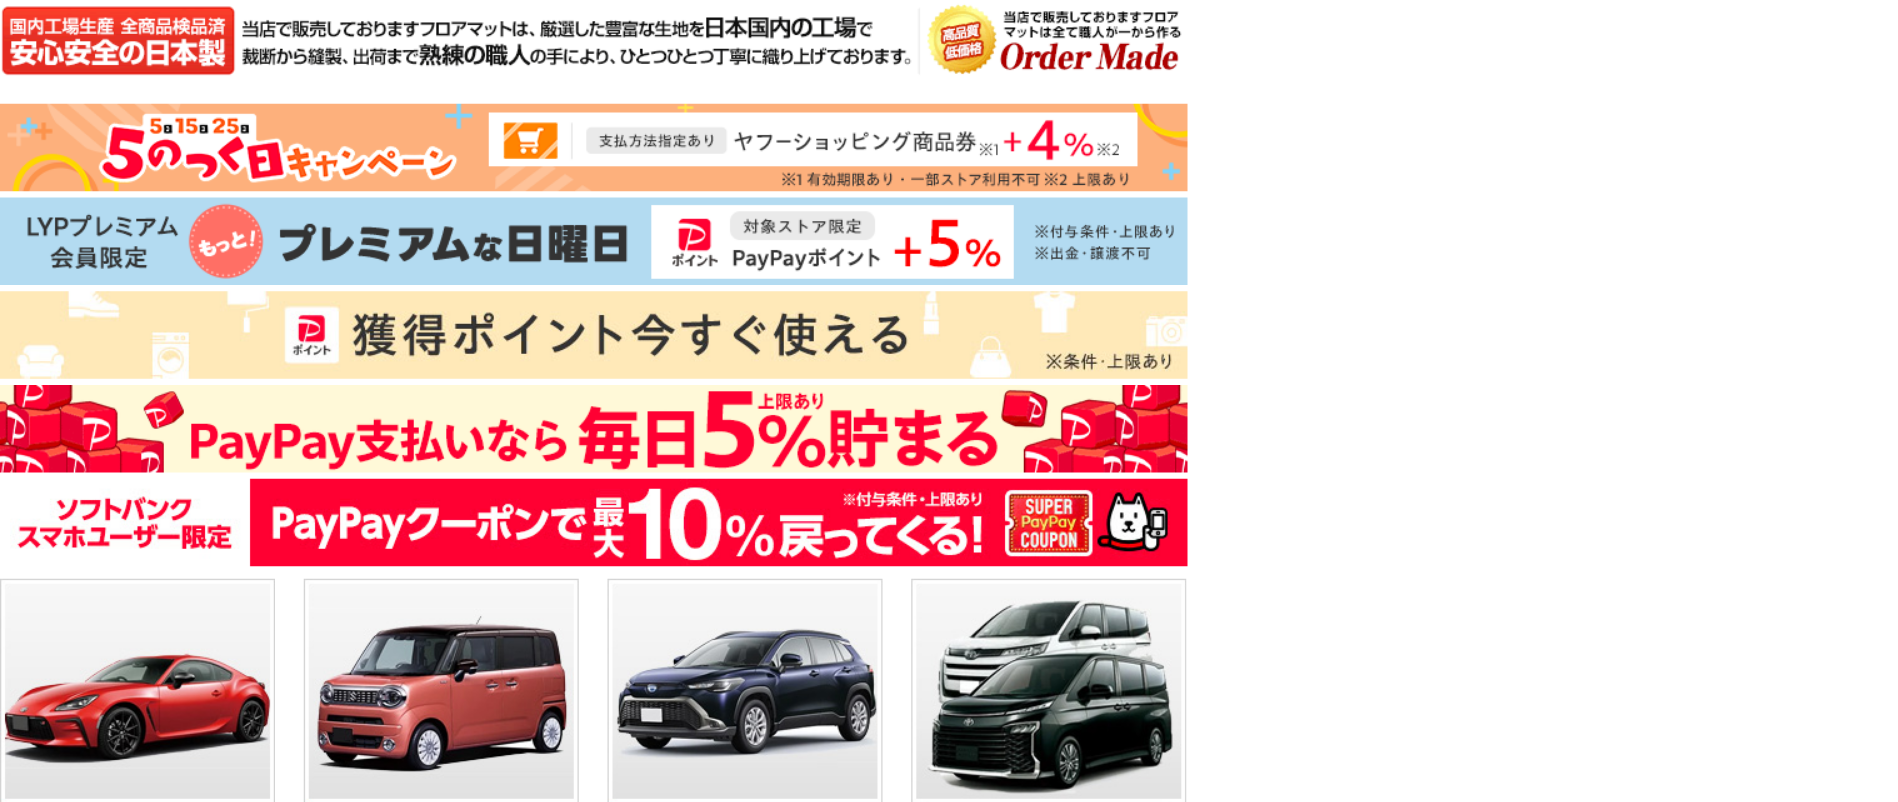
import math
import cairo



def draw_image(context, path, x, y, w, h):
    context.save()
    context.set_source_surface(cairo.ImageSurface.create_from_png(path), x, y)
    context.rectangle(x, y, w, h)
    context.fill()
    context.restore()


def draw(context):
    context.set_source_rgb(1, 1, 1)
    context.paint()
    draw_image(context, "images/1.png", 1, 3, 1181, 73)
    draw_image(context, "images/2.png", 0, 103, 1188, 89)
    draw_image(context, "images/3.png", 0, 197, 1188, 88)
    draw_image(context, "images/4.png", 0, 291, 1188, 88)
    draw_image(context, "images/5.png", 0, 385, 1188, 88)
    draw_image(context, "images/6.png", 10, 478, 1178, 89)
    draw_image(context, "images/7.png", 0, 578, 275, 224)
    draw_image(context, "images/8.png", 303, 578, 276, 224)
    draw_image(context, "images/9.png", 607, 578, 276, 224)
    draw_image(context, "images/10.png", 911, 578, 276, 224)


surface = cairo.ImageSurface(cairo.Format.RGB24, 1898, 802)
context = cairo.Context(surface)
options = cairo.FontOptions()
options.set_hint_metrics(cairo.HintMetrics.OFF)
options.set_hint_style(cairo.HintStyle.NONE)
context.set_font_options(options)
context.set_miter_limit(4)
draw(context)
surface.write_to_png("out.png")
